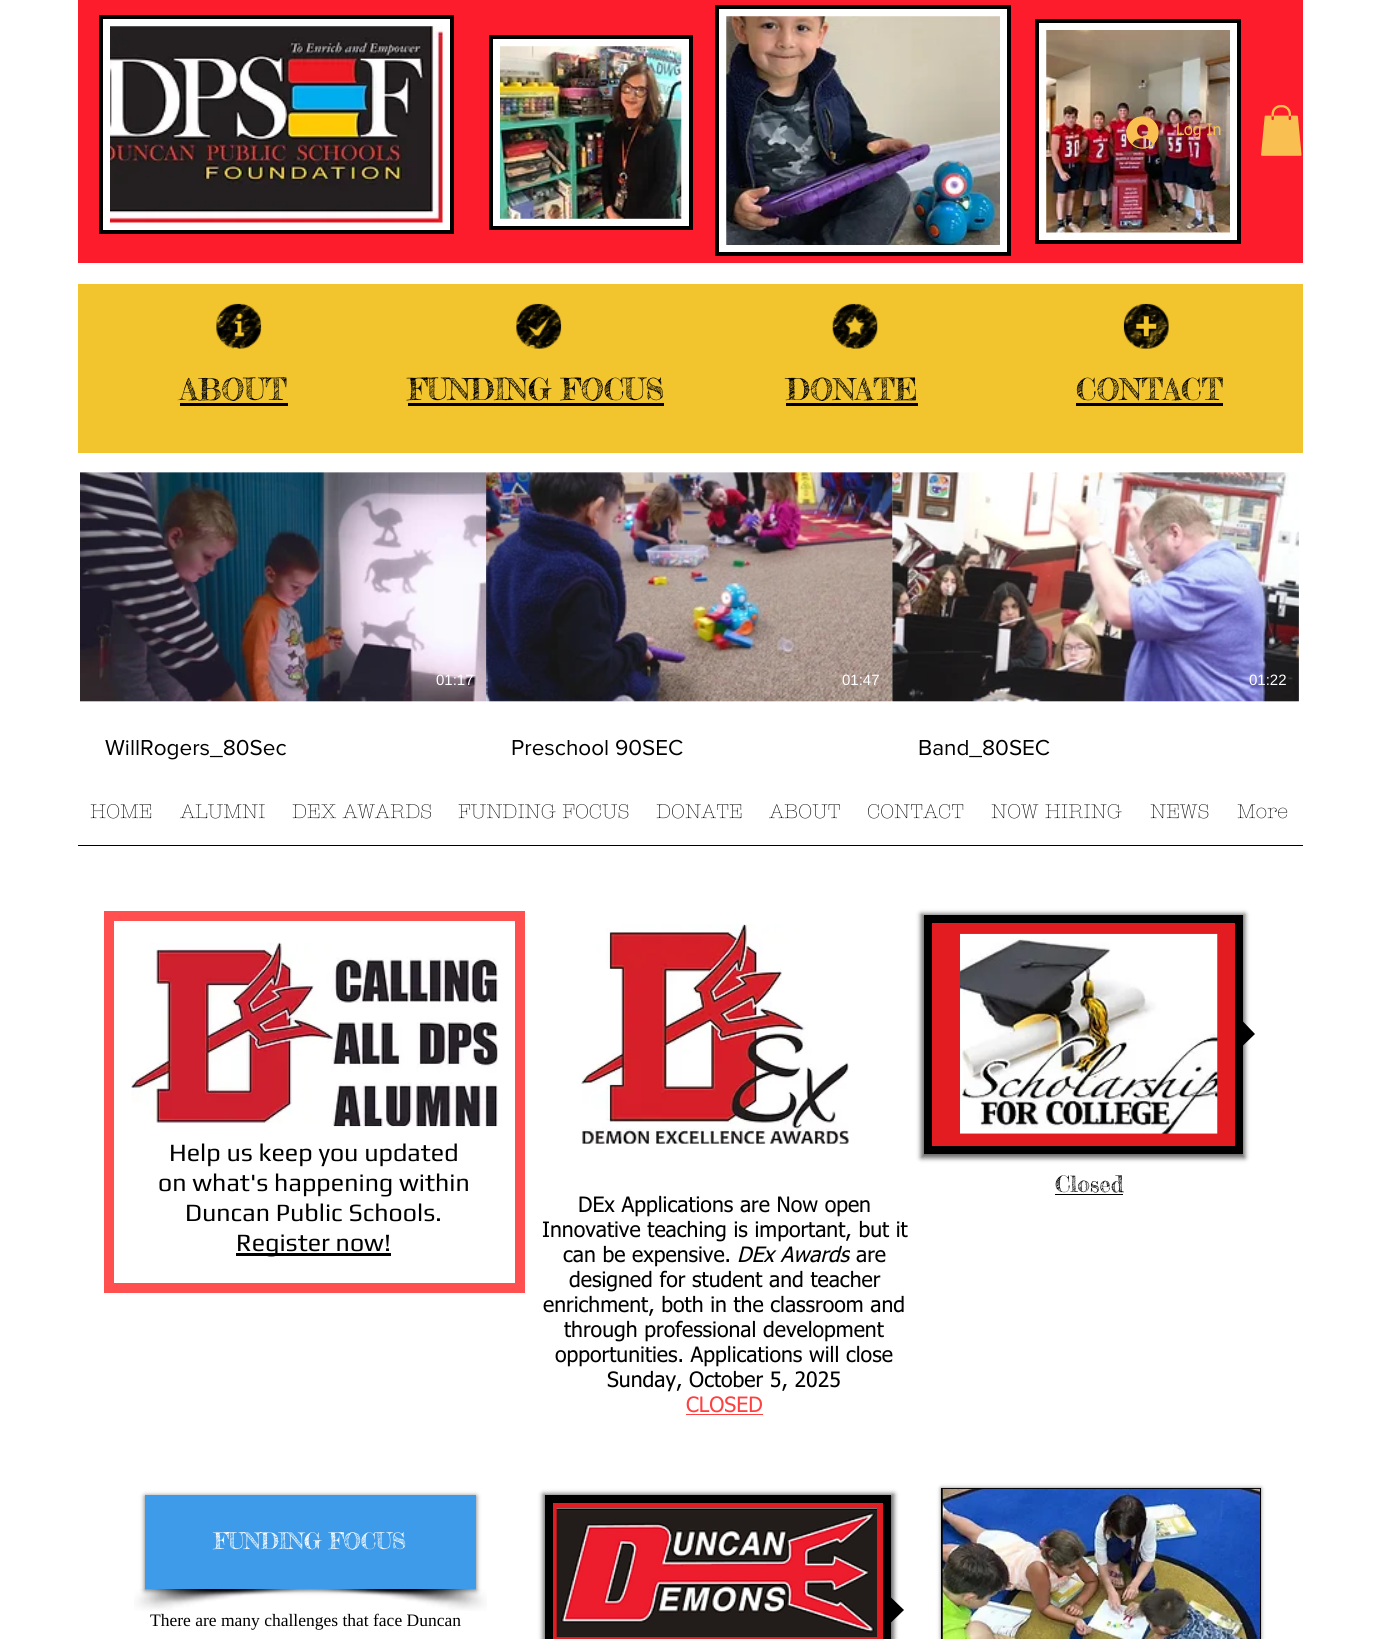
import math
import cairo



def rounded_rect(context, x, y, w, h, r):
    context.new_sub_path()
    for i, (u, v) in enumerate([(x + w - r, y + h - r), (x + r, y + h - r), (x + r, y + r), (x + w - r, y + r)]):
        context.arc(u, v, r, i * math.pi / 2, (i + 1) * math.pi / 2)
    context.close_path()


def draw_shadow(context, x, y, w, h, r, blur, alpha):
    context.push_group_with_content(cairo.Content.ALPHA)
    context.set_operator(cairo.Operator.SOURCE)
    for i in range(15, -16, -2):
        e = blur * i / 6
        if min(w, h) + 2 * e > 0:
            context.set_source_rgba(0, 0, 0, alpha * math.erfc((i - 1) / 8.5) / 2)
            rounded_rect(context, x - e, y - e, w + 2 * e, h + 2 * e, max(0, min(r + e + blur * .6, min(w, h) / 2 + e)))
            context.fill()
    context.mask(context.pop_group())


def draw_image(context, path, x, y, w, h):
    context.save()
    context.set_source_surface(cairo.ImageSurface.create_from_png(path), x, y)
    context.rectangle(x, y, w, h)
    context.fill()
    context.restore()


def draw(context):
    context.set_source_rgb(1, 1, 1)
    context.paint()
    context.set_source_rgb(252 / 255, 28 / 255, 43 / 255)
    context.rectangle(78, 0, 1225, 263)
    context.fill()
    context.set_source_rgb(1, 1, 1)
    context.rectangle(101, 17, 351, 215)
    context.fill_preserve()
    context.set_source_rgb(0, 0, 0)
    context.set_line_width(4)
    context.stroke()
    draw_image(context, "images/1.png", 110, 26, 333, 197)
    context.set_source_rgb(1, 1, 1)
    context.rectangle(491, 37, 200, 191)
    context.fill_preserve()
    context.set_source_rgb(0, 0, 0)
    context.stroke()
    draw_image(context, "images/2.png", 500, 46, 182, 173)
    context.set_source_rgb(1, 1, 1)
    context.rectangle(717, 7, 292, 247)
    context.fill_preserve()
    context.set_source_rgb(0, 0, 0)
    context.stroke()
    draw_image(context, "images/3.png", 726, 16, 274, 229)
    context.set_source_rgb(1, 1, 1)
    context.rectangle(1037, 21, 202, 221)
    context.fill_preserve()
    context.set_source_rgb(0, 0, 0)
    context.stroke()
    draw_image(context, "images/4.png", 1046, 30, 184, 203)
    draw_image(context, "images/5.png", 1261, 105, 41, 51)
    draw_image(context, "images/6.png", 1126, 116, 33, 33)
    context.set_source_rgb(242 / 255, 196 / 255, 46 / 255)
    context.rectangle(78, 284, 1225, 169)
    context.fill()
    draw_image(context, "images/7.png", 216, 303, 46, 46)
    draw_image(context, "images/8.png", 516, 303, 46, 46)
    draw_image(context, "images/9.png", 832, 303, 46, 46)
    draw_image(context, "images/10.png", 1123, 303, 46, 46)
    context.set_source_rgb(0, 0, 0)
    context.rectangle(180, 403, 108, 3)
    context.fill()
    context.rectangle(408, 403, 256, 3)
    context.fill()
    context.rectangle(786, 403, 132, 3)
    context.fill()
    context.rectangle(1076, 403, 147, 3)
    context.fill()
    draw_image(context, "images/11.png", 80, 472, 407, 230)
    draw_image(context, "images/12.png", 80, 472, 407, 230)
    draw_image(context, "images/13.png", 486, 472, 407, 230)
    draw_image(context, "images/14.png", 486, 472, 407, 230)
    draw_image(context, "images/15.png", 892, 472, 407, 230)
    draw_image(context, "images/16.png", 892, 472, 407, 230)
    context.rectangle(78, 845, 1225, 1)
    context.fill()
    draw_image(context, "images/17.png", 581, 924, 268, 220)
    context.rectangle(109, 916, 411, 372)
    context.set_source_rgb(1, 79 / 255, 79 / 255)
    context.set_line_width(10)
    context.stroke()
    draw_image(context, "images/18.png", 131, 942, 367, 185)
    context.set_source_rgb(0, 0, 0)
    context.rectangle(236, 1253, 155, 3)
    context.fill()
    context.set_source_rgb(0, 0, 0)
    draw_shadow(context, 921, 914, 324, 244, 0, 2.5, 0.6)
    context.set_source_rgb(226 / 255, 28 / 255, 33 / 255)
    context.rectangle(928, 919, 311, 231)
    context.fill_preserve()
    context.set_source_rgb(0, 0, 0)
    context.set_line_width(8)
    context.stroke()
    draw_image(context, "images/19.png", 960, 933, 258, 201)
    context.new_path()
    context.move_to(1242.5, 1046)
    context.line_to(1242.5, 1021)
    context.line_to(1255, 1034)
    context.close_path()
    context.fill()
    context.rectangle(1055, 1194, 68, 1)
    context.fill()
    context.set_source_rgb(1, 64 / 255, 64 / 255)
    context.rectangle(686, 1414, 77, 1)
    context.fill()
    draw_image(context, "images/20.png", 134, 1589, 186, 22)
    draw_image(context, "images/21.png", 301, 1589, 186, 22)
    context.set_source_rgb(0, 0, 0)
    draw_shadow(context, 145, 1496, 331, 94, 0, 2.5, 0.6)
    context.set_source_rgb(61 / 255, 155 / 255, 233 / 255)
    context.rectangle(145, 1495, 331, 94)
    context.fill()
    context.set_source_rgb(0, 0, 0)
    draw_shadow(context, 543, 1494, 351, 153, 0, 2.5, 0.6)
    context.set_source_rgb(226 / 255, 28 / 255, 33 / 255)
    context.rectangle(549, 1499, 338, 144)
    context.fill_preserve()
    context.set_source_rgb(0, 0, 0)
    context.stroke()
    draw_image(context, "images/22.png", 556, 1508, 322, 130)
    context.new_path()
    context.move_to(891, 1622.5)
    context.line_to(891, 1597.5)
    context.line_to(904, 1610)
    context.close_path()
    context.fill()
    context.set_source_rgb(0, 0, 0)
    draw_shadow(context, 941, 1488, 320, 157, 0, 2, 0.5)
    context.set_source_rgb(0, 0, 0)
    context.rectangle(941, 1488, 320, 151)
    context.fill()
    draw_image(context, "images/23.png", 942, 1488, 318, 151)
    context.select_font_face("tahoma")
    context.set_font_size(16)
    context.set_source_rgb(249 / 255, 191 / 255, 81 / 255)
    context.move_to(1176, 135)
    context.show_text("Log In")
    context.select_font_face("Fredericka the Great")
    context.set_font_size(30)
    context.set_source_rgb(0, 0, 0)
    context.move_to(180, 400)
    context.show_text("ABOUT")
    context.move_to(408, 400)
    context.show_text("FUNDING FOCUS")
    context.move_to(786, 400)
    context.show_text("DONATE")
    context.move_to(1076, 400)
    context.show_text("CONTACT")
    context.select_font_face("Liberation Sans")
    context.set_font_size(15)
    context.set_source_rgb(1, 1, 1)
    context.move_to(436, 685)
    context.show_text("01:17")
    context.select_font_face("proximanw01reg")
    context.set_font_size(22.5)
    context.set_source_rgb(0, 0, 0)
    context.move_to(105, 755)
    context.show_text("WillRogers_80Sec")
    context.select_font_face("Liberation Sans")
    context.set_font_size(15)
    context.set_source_rgb(1, 1, 1)
    context.move_to(842, 685)
    context.show_text("01:47")
    context.select_font_face("proximanw01reg")
    context.set_font_size(22.5)
    context.set_source_rgb(0, 0, 0)
    context.move_to(511, 755)
    context.show_text("Preschool 90SEC")
    context.select_font_face("Liberation Sans")
    context.set_font_size(15)
    context.set_source_rgb(1, 1, 1)
    context.move_to(1249, 685)
    context.show_text("01:22")
    context.select_font_face("proximanw01reg")
    context.set_font_size(22.5)
    context.set_source_rgb(0, 0, 0)
    context.move_to(918, 755)
    context.show_text("Band_80SEC")
    context.select_font_face("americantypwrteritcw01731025 Light")
    context.set_font_size(20)
    context.move_to(90, 818)
    context.show_text("HOME")
    context.move_to(180, 818)
    context.show_text("ALUMNI")
    context.move_to(292, 818)
    context.show_text("DEX AWARDS")
    context.move_to(458, 818)
    context.show_text("FUNDING FOCUS")
    context.move_to(656, 818)
    context.show_text("DONATE")
    context.move_to(769, 818)
    context.show_text("ABOUT")
    context.move_to(867, 818)
    context.show_text("CONTACT")
    context.move_to(991, 818)
    context.show_text("NOW HIRING")
    context.move_to(1150, 818)
    context.show_text("NEWS")
    context.move_to(1237, 818)
    context.show_text("More")
    context.select_font_face("Play")
    context.set_font_size(25)
    context.move_to(169, 1161)
    context.show_text("Help us keep you updated")
    context.move_to(158, 1191)
    context.show_text("on what's happening within")
    context.move_to(185, 1221)
    context.show_text("Duncan Public Schools.")
    context.move_to(236, 1251)
    context.show_text("Register now!")
    context.select_font_face("Fredericka the Great")
    context.set_font_size(22.5)
    context.move_to(1055, 1192)
    context.show_text("Closed")
    context.select_font_face("tahoma")
    context.set_font_size(21.25)
    context.move_to(578, 1212)
    context.show_text("DEx Applications are Now open")
    context.move_to(542, 1237)
    context.show_text("Innovative teaching is important, but it")
    context.move_to(563, 1262)
    context.show_text("can be expensive.")
    context.select_font_face("tahoma", cairo.FontSlant.ITALIC)
    context.move_to(737, 1262)
    context.show_text("DEx Awards")
    context.set_source_rgb(1, 1, 1)
    context.rectangle(850, 1250, 2, 3)
    context.fill()
    context.select_font_face("tahoma")
    context.set_source_rgb(0, 0, 0)
    context.move_to(856, 1262)
    context.show_text("are")
    context.move_to(569, 1287)
    context.show_text("designed for student and teacher")
    context.move_to(543, 1312)
    context.show_text("enrichment, both in the classroom and")
    context.move_to(564, 1337)
    context.show_text("through professional development")
    context.move_to(555, 1362)
    context.show_text("opportunities. Applications will close")
    context.move_to(607, 1387)
    context.show_text("Sunday, October 5, 2025")
    context.set_source_rgb(1, 64 / 255, 64 / 255)
    context.move_to(686, 1412)
    context.show_text("CLOSED")
    context.select_font_face("Fredericka the Great")
    context.set_font_size(22.5)
    context.set_source_rgb(1, 1, 1)
    context.move_to(214, 1549)
    context.show_text("FUNDING FOCUS")
    context.select_font_face("Liberation Serif")
    context.set_font_size(17.5)
    context.set_source_rgb(0, 0, 0)
    context.move_to(150, 1626)
    context.show_text("There are many challenges that face Duncan")


surface = cairo.ImageSurface(cairo.Format.RGB24, 1378, 1639)
context = cairo.Context(surface)
options = cairo.FontOptions()
options.set_hint_metrics(cairo.HintMetrics.OFF)
options.set_hint_style(cairo.HintStyle.NONE)
context.set_font_options(options)
context.set_miter_limit(4)
draw(context)
surface.write_to_png("out.png")
